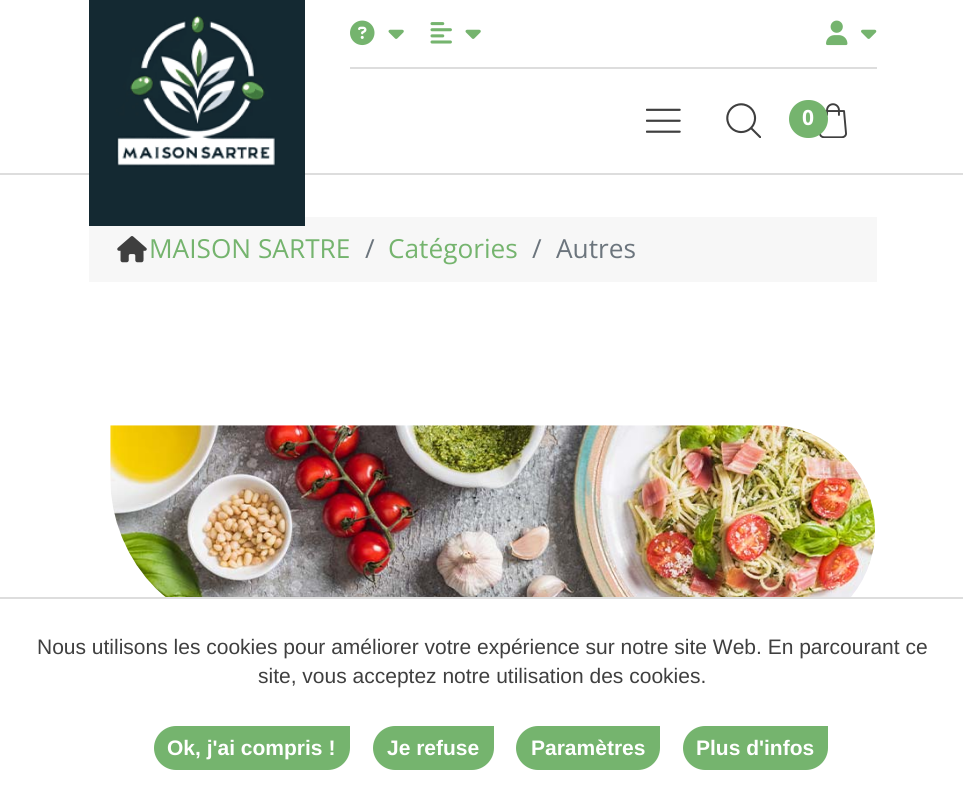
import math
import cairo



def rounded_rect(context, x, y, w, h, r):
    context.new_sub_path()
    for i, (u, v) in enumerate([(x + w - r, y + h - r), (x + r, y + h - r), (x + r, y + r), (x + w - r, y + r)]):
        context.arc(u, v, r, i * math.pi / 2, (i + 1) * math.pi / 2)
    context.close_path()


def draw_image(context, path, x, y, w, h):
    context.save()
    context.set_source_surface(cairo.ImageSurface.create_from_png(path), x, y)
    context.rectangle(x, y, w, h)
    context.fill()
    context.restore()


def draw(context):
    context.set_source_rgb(1, 1, 1)
    context.paint()
    context.set_source_rgb(221 / 255, 221 / 255, 221 / 255)
    context.rectangle(0, 173, 963, 2)
    context.fill()
    context.set_source_rgb(247 / 255, 247 / 255, 247 / 255)
    context.rectangle(89, 217, 788, 65)
    context.fill()
    context.set_source_rgb(20 / 255, 41 / 255, 50 / 255)
    context.rectangle(89, 0, 216, 226)
    context.fill()
    draw_image(context, "images/1.png", 116, 15, 160, 152)
    context.set_source_rgb(221 / 255, 221 / 255, 221 / 255)
    context.rectangle(350, 67, 527, 2)
    context.fill()
    draw_image(context, "images/2.png", 350, 20, 25, 26)
    draw_image(context, "images/3.png", 388, 29, 16, 10)
    draw_image(context, "images/4.png", 430, 22, 22, 22)
    draw_image(context, "images/3.png", 465, 29, 16, 10)
    draw_image(context, "images/5.png", 826, 20, 22, 26)
    draw_image(context, "images/6.png", 861, 29, 16, 10)
    draw_image(context, "images/7.png", 646, 108, 35, 25)
    draw_image(context, "images/8.png", 726, 103, 35, 35)
    draw_image(context, "images/9.png", 819, 103, 28, 35)
    context.set_source_rgb(117 / 255, 180 / 255, 110 / 255)
    rounded_rect(context, 789, 100, 39, 38, 19)
    context.fill()
    draw_image(context, "images/10.png", 117, 236, 30, 27)
    draw_image(context, "images/11.png", 110, 425, 765, 172)
    context.set_source_rgb(221 / 255, 221 / 255, 221 / 255)
    context.rectangle(0, 597, 963, 2)
    context.fill()
    context.set_source_rgb(117 / 255, 180 / 255, 110 / 255)
    context.new_path()
    context.move_to(176, 726)
    context.line_to(350, 726)
    context.line_to(350, 748)
    context.curve_to(350, 760, 340, 770, 328, 770)
    context.line_to(176, 770)
    context.curve_to(164, 770, 154, 760, 154, 748)
    context.curve_to(154, 736, 164, 726, 176, 726)
    context.close_path()
    context.fill()
    context.new_path()
    context.move_to(395, 726)
    context.line_to(494, 726)
    context.line_to(494, 748)
    context.curve_to(494, 760, 484, 770, 472, 770)
    context.line_to(395, 770)
    context.curve_to(383, 770, 373, 760, 373, 748)
    context.curve_to(373, 736, 383, 726, 395, 726)
    context.close_path()
    context.fill()
    context.new_path()
    context.move_to(538, 726)
    context.line_to(660, 726)
    context.line_to(660, 748)
    context.curve_to(660, 760, 650, 770, 638, 770)
    context.line_to(538, 770)
    context.curve_to(526, 770, 516, 760, 516, 748)
    context.curve_to(516, 736, 526, 726, 538, 726)
    context.close_path()
    context.fill()
    context.new_path()
    context.move_to(705, 726)
    context.line_to(828, 726)
    context.line_to(828, 748)
    context.curve_to(828, 760, 818, 770, 806, 770)
    context.line_to(705, 770)
    context.curve_to(693, 770, 683, 760, 683, 748)
    context.curve_to(683, 736, 693, 726, 705, 726)
    context.close_path()
    context.fill()
    context.select_font_face("Open Sans", cairo.FontSlant.NORMAL, cairo.FontWeight.BOLD)
    context.set_font_size(21)
    context.set_source_rgb(1, 1, 1)
    context.move_to(802, 125)
    context.show_text("0")
    context.select_font_face("Open Sans")
    context.set_font_size(26.25)
    context.set_source_rgb(117 / 255, 180 / 255, 110 / 255)
    context.move_to(149, 258)
    context.show_text("MAISON SARTRE")
    context.set_source_rgb(108 / 255, 117 / 255, 125 / 255)
    context.move_to(365, 258)
    context.show_text("/")
    context.set_source_rgb(117 / 255, 180 / 255, 110 / 255)
    context.move_to(388, 258)
    context.show_text("Catégories")
    context.set_source_rgb(108 / 255, 117 / 255, 125 / 255)
    context.move_to(532, 258)
    context.show_text("/")
    context.move_to(556, 258)
    context.show_text("Autres")
    context.select_font_face("Liberation Sans")
    context.set_font_size(21)
    context.set_source_rgb(63 / 255, 63 / 255, 63 / 255)
    context.move_to(37, 654)
    context.show_text("Nous utilisons les cookies pour améliorer votre expérience sur notre site Web. En parcourant ce")
    context.move_to(258, 683)
    context.show_text("site, vous acceptez notre utilisation des cookies.")
    context.select_font_face("Liberation Sans", cairo.FontSlant.NORMAL, cairo.FontWeight.BOLD)
    context.set_source_rgb(1, 1, 1)
    context.move_to(167, 755)
    context.show_text("Ok, j'ai compris !")
    context.move_to(387, 755)
    context.show_text("Je refuse")
    context.move_to(531, 755)
    context.show_text("Paramètres")
    context.move_to(696, 755)
    context.show_text("Plus d'infos")


surface = cairo.ImageSurface(cairo.Format.RGB24, 963, 805)
context = cairo.Context(surface)
options = cairo.FontOptions()
options.set_hint_metrics(cairo.HintMetrics.OFF)
options.set_hint_style(cairo.HintStyle.NONE)
context.set_font_options(options)
context.set_miter_limit(4)
draw(context)
surface.write_to_png("out.png")
